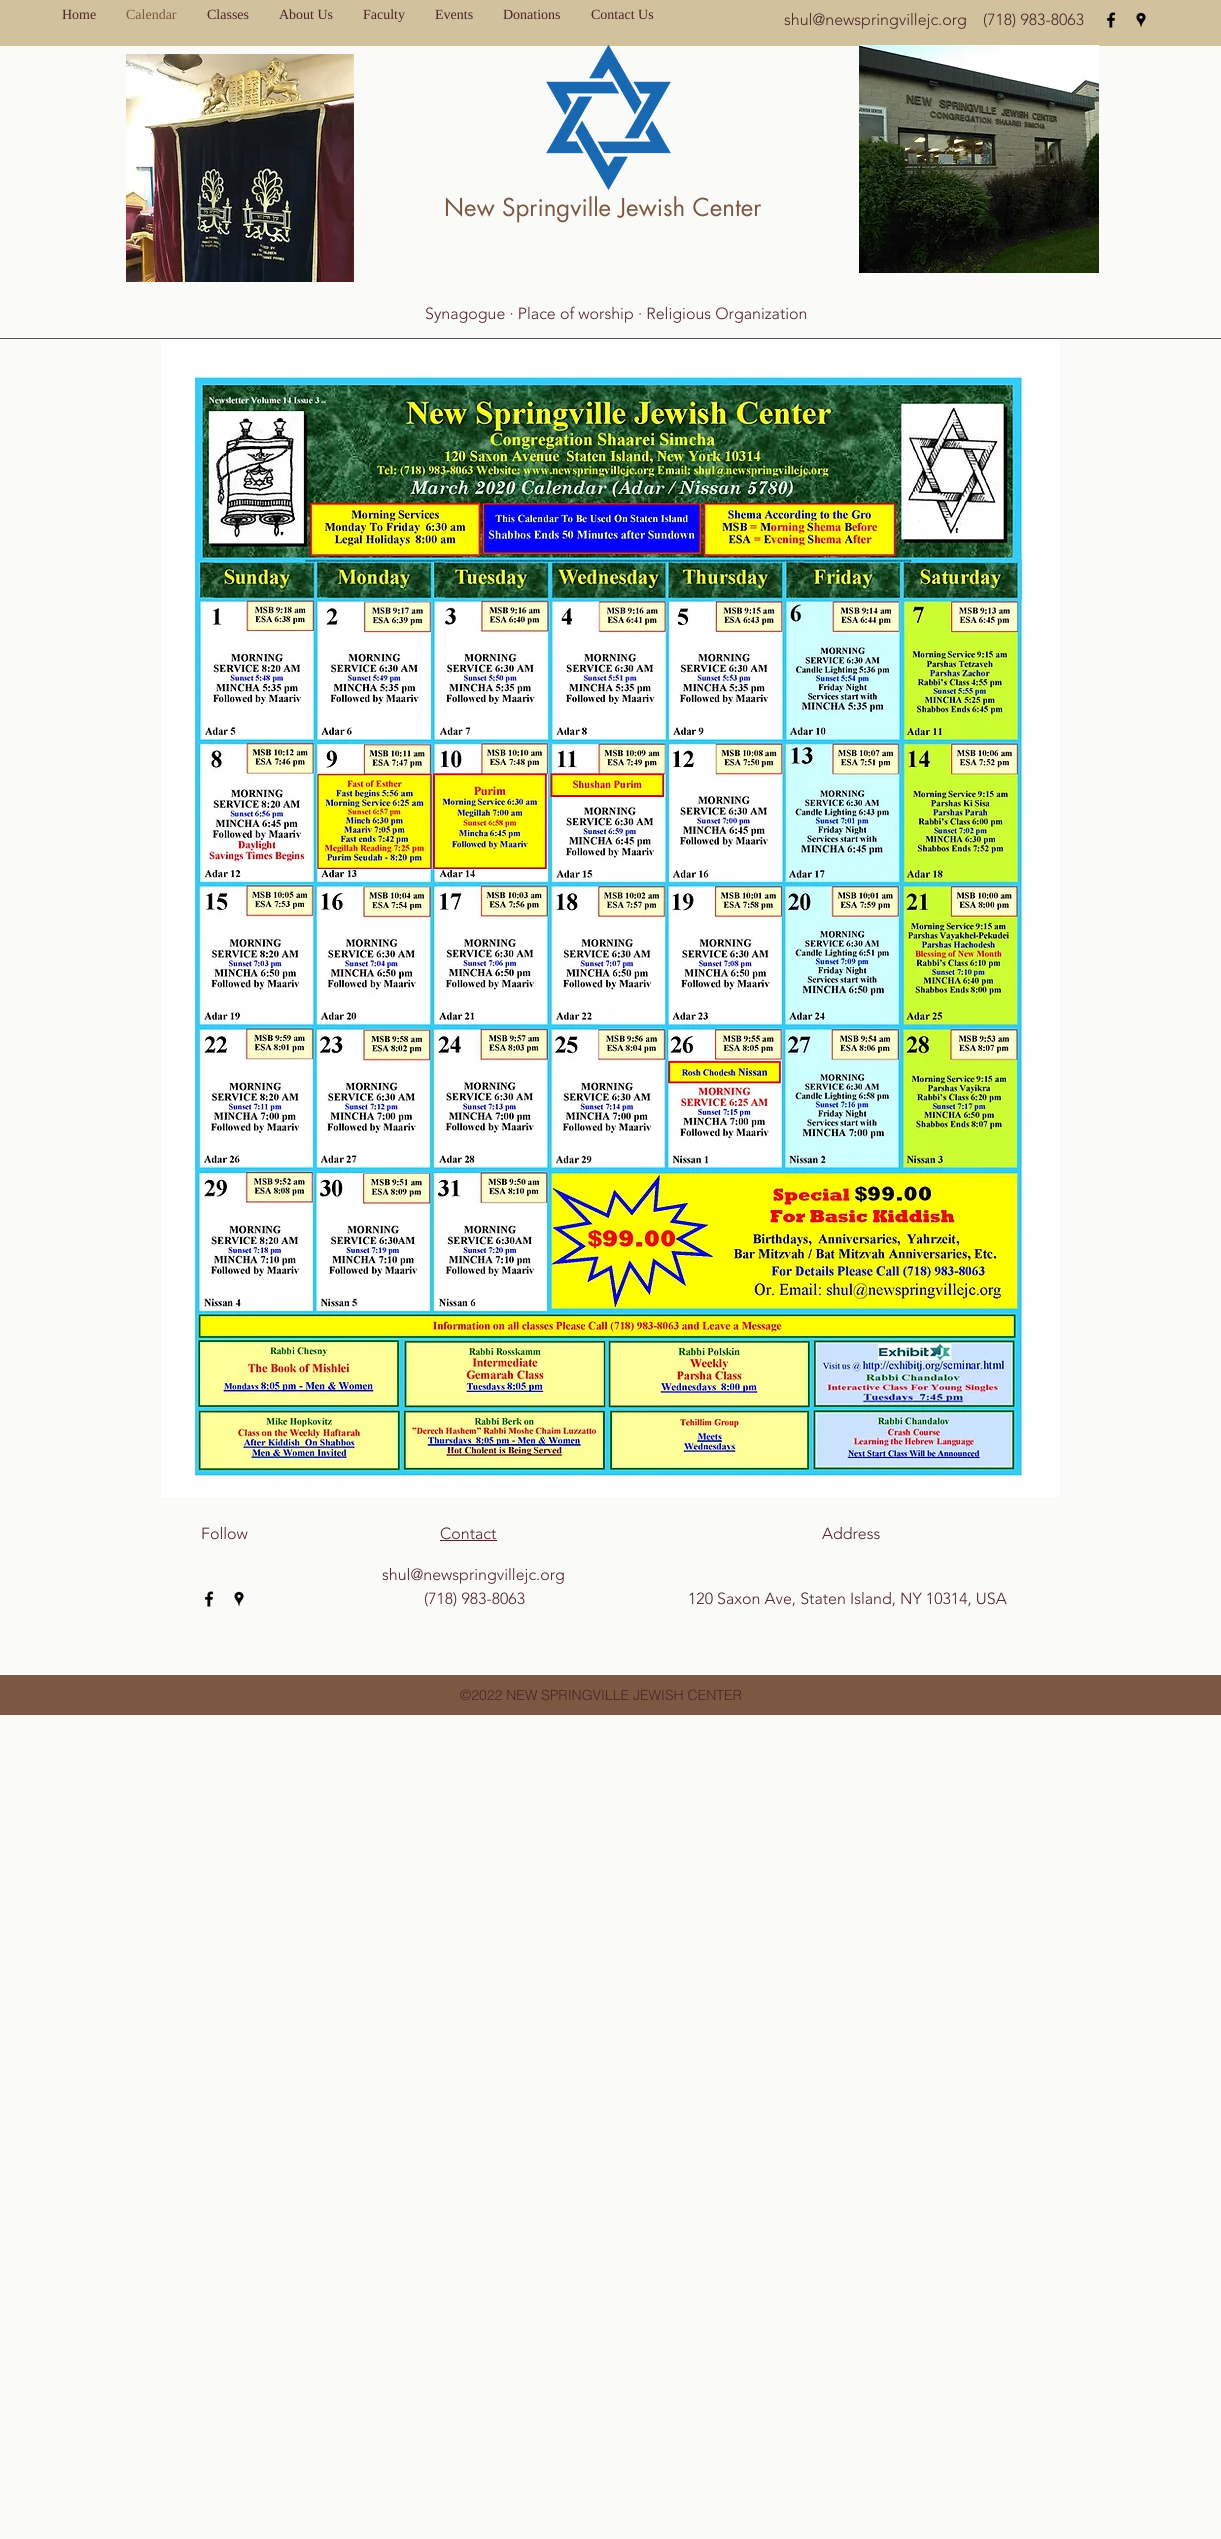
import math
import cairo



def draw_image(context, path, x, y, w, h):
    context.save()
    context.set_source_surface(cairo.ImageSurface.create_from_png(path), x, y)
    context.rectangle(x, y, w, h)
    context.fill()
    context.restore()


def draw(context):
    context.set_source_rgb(250 / 255, 251 / 255, 249 / 255)
    context.paint()
    context.set_source_rgb(209 / 255, 194 / 255, 157 / 255)
    context.rectangle(0, 0, 1221, 46)
    context.fill()
    draw_image(context, "images/1.png", 1107, 12, 9, 16)
    draw_image(context, "images/2.png", 1136, 12, 10, 15)
    draw_image(context, "images/3.png", 126, 54, 228, 228)
    draw_image(context, "images/4.png", 546, 45, 125, 145)
    draw_image(context, "images/5.png", 859, 45, 240, 228)
    context.set_source_rgb(87 / 255, 87 / 255, 87 / 255)
    context.rectangle(0, 338, 1221, 1)
    context.fill()
    draw_image(context, "images/6.png", 161, 341, 899, 1156)
    context.set_source_rgb(77 / 255, 34 / 255, 40 / 255)
    context.rectangle(440, 1540, 57, 1)
    context.fill()
    draw_image(context, "images/7.png", 205, 1591, 9, 16)
    draw_image(context, "images/8.png", 234, 1591, 10, 15)
    context.set_source_rgb(124 / 255, 88 / 255, 66 / 255)
    context.rectangle(0, 1675, 1221, 40)
    context.fill()
    context.select_font_face("Liberation Serif")
    context.set_font_size(14)
    context.set_source_rgb(77 / 255, 34 / 255, 40 / 255)
    context.move_to(62, 19)
    context.show_text("Home")
    context.set_source_rgb(124 / 255, 88 / 255, 66 / 255)
    context.move_to(126, 19)
    context.show_text("Calendar")
    context.set_source_rgb(77 / 255, 34 / 255, 40 / 255)
    context.move_to(207, 19)
    context.show_text("Classes")
    context.move_to(279, 19)
    context.show_text("About Us")
    context.move_to(363, 19)
    context.show_text("Faculty")
    context.move_to(435, 19)
    context.show_text("Events")
    context.move_to(503, 19)
    context.show_text("Donations")
    context.move_to(591, 19)
    context.show_text("Contact Us")
    context.select_font_face("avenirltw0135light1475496 Light")
    context.set_font_size(16)
    context.move_to(784, 25)
    context.show_text("shul@newspringvillejc.org")
    context.move_to(983, 25)
    context.show_text("(718) 983-8063")
    context.select_font_face("futura")
    context.set_font_size(24)
    context.set_source_rgb(124 / 255, 88 / 255, 66 / 255)
    context.move_to(444, 216)
    context.show_text("New Springville Jewish Center")
    context.select_font_face("avenirltw0135light1475496 Light")
    context.set_font_size(16)
    context.set_source_rgb(77 / 255, 34 / 255, 40 / 255)
    context.move_to(425, 319)
    context.show_text("Synagogue · Place of worship · Religious Organization")
    context.move_to(201, 1539)
    context.show_text("Follow")
    context.move_to(440, 1539)
    context.show_text("Contact")
    context.move_to(822, 1539)
    context.show_text("Address")
    context.move_to(382, 1580)
    context.show_text("shul@newspringvillejc.org")
    context.move_to(424, 1604)
    context.show_text("(718) 983-8063")
    context.move_to(688, 1604)
    context.show_text("120 Saxon Ave, Staten Island, NY 10314, USA")
    context.select_font_face("helvetica Light")
    context.set_font_size(14)
    context.move_to(460, 1700)
    context.show_text("©2022 NEW SPRINGVILLE JEWISH CENTER")


surface = cairo.ImageSurface(cairo.Format.RGB24, 1221, 2539)
context = cairo.Context(surface)
options = cairo.FontOptions()
options.set_hint_metrics(cairo.HintMetrics.OFF)
options.set_hint_style(cairo.HintStyle.NONE)
context.set_font_options(options)
context.set_miter_limit(4)
draw(context)
surface.write_to_png("out.png")
